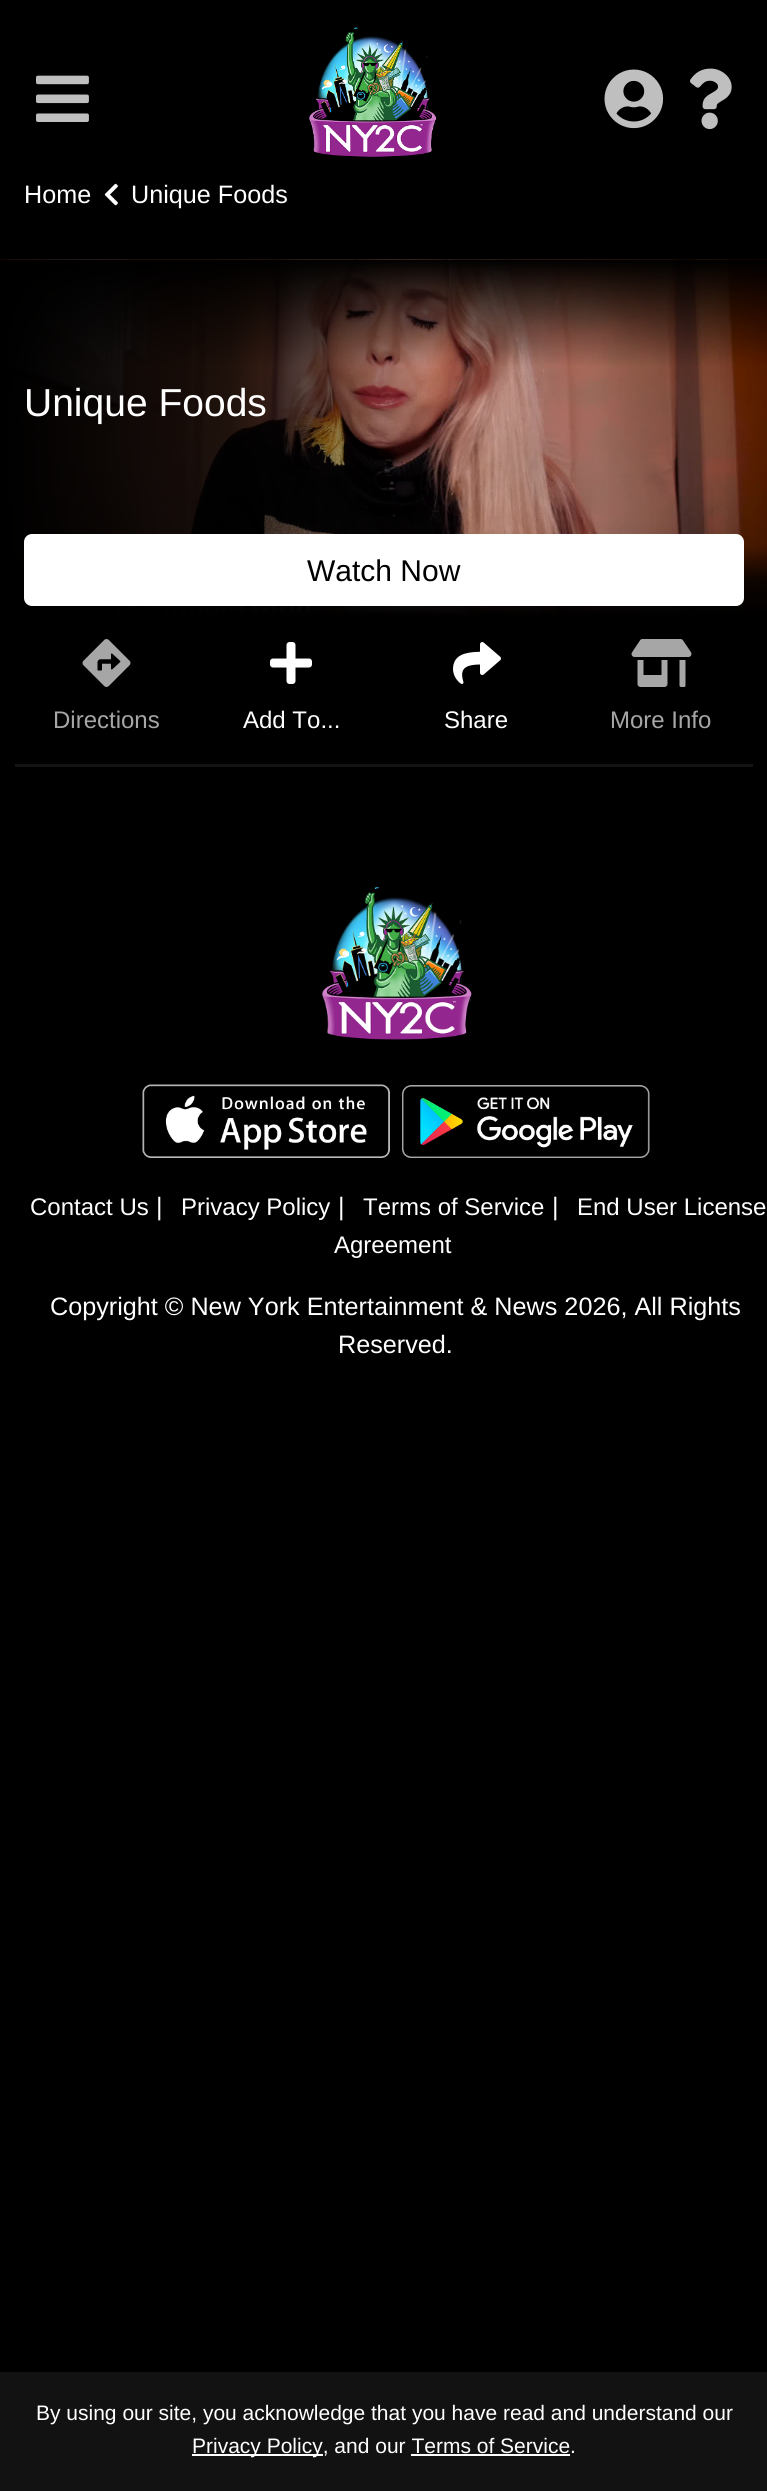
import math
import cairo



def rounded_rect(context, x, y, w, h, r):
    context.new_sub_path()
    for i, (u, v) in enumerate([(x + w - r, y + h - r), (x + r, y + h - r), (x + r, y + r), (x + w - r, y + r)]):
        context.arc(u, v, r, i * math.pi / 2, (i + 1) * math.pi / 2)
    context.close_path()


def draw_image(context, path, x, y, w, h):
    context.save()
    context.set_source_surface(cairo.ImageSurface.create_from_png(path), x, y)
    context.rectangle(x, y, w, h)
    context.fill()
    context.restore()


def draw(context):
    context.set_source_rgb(0, 0, 0)
    context.paint()
    draw_image(context, "images/5.png", 104, 183, 14, 23)
    gradient = cairo.LinearGradient(384, 0, 384, 189)
    gradient.add_color_stop_rgba(0.05, 0, 0, 0, 1)
    gradient.add_color_stop_rgba(1, 0, 0, 0, 0)
    context.set_source(gradient)
    context.rectangle(114, 184, 3, 1)
    context.fill()
    draw_image(context, "images/1.png", 36, 75, 53, 47)
    draw_image(context, "images/2.png", 309, 27, 128, 130)
    draw_image(context, "images/3.png", 604, 69, 60, 60)
    draw_image(context, "images/4.png", 690, 68, 42, 62)
    draw_image(context, "images/6.png", 0, 259, 767, 356)
    context.set_source_rgb(1, 1, 1)
    rounded_rect(context, 25, 535, 718, 70, 7)
    context.fill_preserve()
    context.stroke()
    context.set_source_rgb(20 / 255, 20 / 255, 20 / 255)
    context.rectangle(15, 764, 738, 3)
    context.fill()
    draw_image(context, "images/7.png", 82, 639, 49, 48)
    draw_image(context, "images/8.png", 270, 642, 42, 42)
    draw_image(context, "images/9.png", 453, 642, 48, 42)
    draw_image(context, "images/10.png", 631, 639, 61, 48)
    draw_image(context, "images/11.png", 322, 887, 150, 153)
    draw_image(context, "images/12.png", 142, 1084, 248, 74)
    draw_image(context, "images/13.png", 402, 1085, 248, 73)
    context.set_source_rgb(18 / 255, 18 / 255, 18 / 255)
    context.rectangle(0, 2372, 767, 119)
    context.fill()
    context.set_source_rgb(1, 1, 1)
    context.rectangle(192, 2454, 131, 2)
    context.fill()
    context.rectangle(411, 2454, 159, 2)
    context.fill()
    context.select_font_face("Liberation Sans")
    context.set_font_size(25.2)
    context.move_to(24, 203)
    context.show_text("Home")
    context.move_to(131, 203)
    context.show_text("Unique Foods")
    context.set_font_size(39)
    context.move_to(24, 416)
    context.show_text("Unique Foods")
    context.set_font_size(30)
    context.set_source_rgb(0, 0, 0)
    context.move_to(307, 581)
    context.show_text("Watch Now")
    context.set_font_size(24)
    context.set_source_rgb(166 / 255, 166 / 255, 166 / 255)
    context.move_to(53, 728)
    context.show_text("Directions")
    context.set_source_rgb(1, 1, 1)
    context.move_to(243, 728)
    context.show_text("Add To...")
    context.move_to(444, 728)
    context.show_text("Share")
    context.set_source_rgb(166 / 255, 166 / 255, 166 / 255)
    context.move_to(610, 728)
    context.show_text("More Info")
    context.set_source_rgb(1, 1, 1)
    context.move_to(30, 1215)
    context.show_text("Contact Us")
    context.set_font_size(25.2)
    context.move_to(156, 1215)
    context.show_text("|")
    context.set_font_size(24)
    context.move_to(181, 1215)
    context.show_text("Privacy Policy")
    context.set_font_size(25.2)
    context.move_to(338, 1215)
    context.show_text("|")
    context.set_font_size(24)
    context.move_to(363, 1215)
    context.show_text("Terms of Service")
    context.set_font_size(25.2)
    context.move_to(552, 1215)
    context.show_text("|")
    context.set_font_size(24)
    context.move_to(577, 1215)
    context.show_text("End User License")
    context.move_to(334, 1253)
    context.show_text("Agreement")
    context.set_font_size(25.2)
    context.move_to(50, 1315)
    context.show_text("Copyright © New York Entertainment & News 2026, All Rights")
    context.move_to(338, 1353)
    context.show_text("Reserved.")
    context.set_font_size(21)
    context.move_to(36, 2420)
    context.show_text("By using our site, you acknowledge that you have read and understand our")
    context.move_to(192, 2453)
    context.show_text("Privacy Policy, and our Terms of Service.")


surface = cairo.ImageSurface(cairo.Format.RGB24, 767, 2491)
context = cairo.Context(surface)
options = cairo.FontOptions()
options.set_hint_metrics(cairo.HintMetrics.OFF)
options.set_hint_style(cairo.HintStyle.NONE)
context.set_font_options(options)
context.set_miter_limit(4)
draw(context)
surface.write_to_png("out.png")
